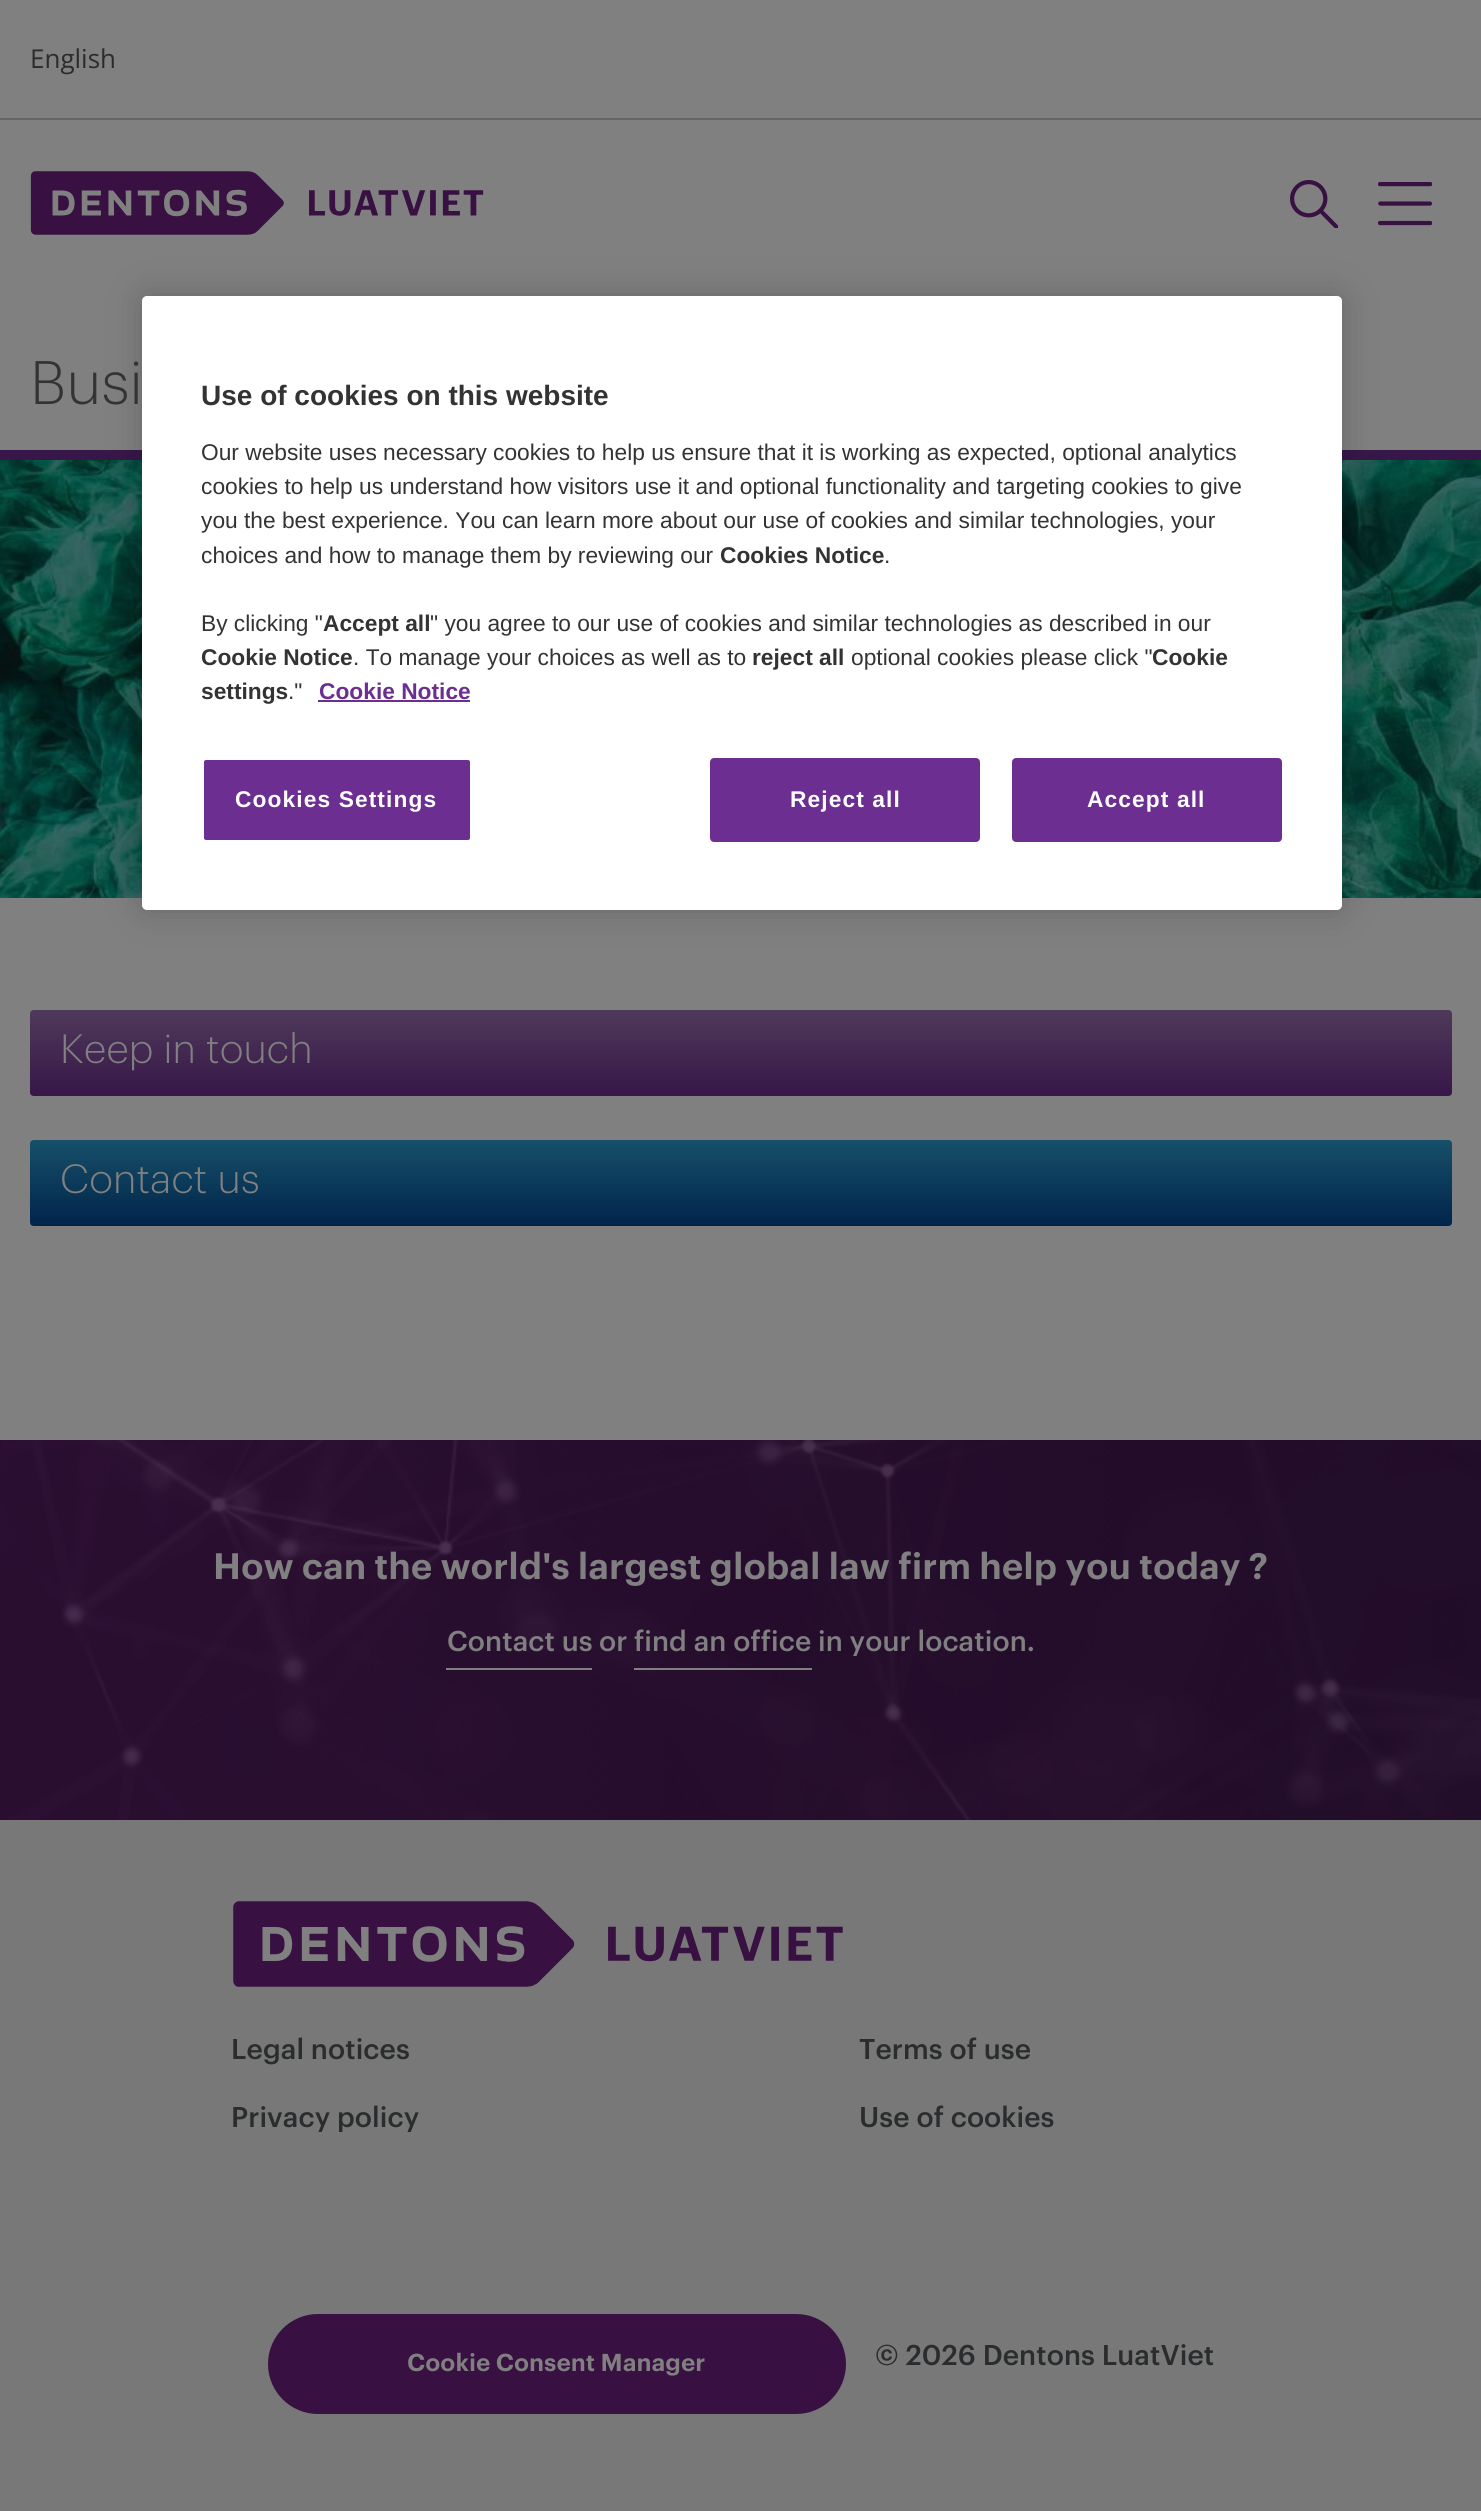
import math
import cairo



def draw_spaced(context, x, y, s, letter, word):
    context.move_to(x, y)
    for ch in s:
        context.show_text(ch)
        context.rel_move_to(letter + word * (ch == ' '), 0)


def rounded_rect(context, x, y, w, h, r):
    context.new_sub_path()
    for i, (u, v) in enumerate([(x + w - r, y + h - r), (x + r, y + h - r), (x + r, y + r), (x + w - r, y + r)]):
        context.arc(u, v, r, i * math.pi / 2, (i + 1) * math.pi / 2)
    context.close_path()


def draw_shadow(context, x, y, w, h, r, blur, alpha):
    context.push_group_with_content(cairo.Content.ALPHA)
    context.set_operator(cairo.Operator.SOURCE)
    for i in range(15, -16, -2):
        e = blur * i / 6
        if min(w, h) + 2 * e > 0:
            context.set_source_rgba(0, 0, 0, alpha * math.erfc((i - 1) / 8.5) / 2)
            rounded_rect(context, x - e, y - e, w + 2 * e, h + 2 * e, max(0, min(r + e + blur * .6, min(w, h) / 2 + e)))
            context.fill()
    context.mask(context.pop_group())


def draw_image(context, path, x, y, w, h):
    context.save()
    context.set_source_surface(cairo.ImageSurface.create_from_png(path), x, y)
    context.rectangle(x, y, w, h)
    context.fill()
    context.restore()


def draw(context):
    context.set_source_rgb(128 / 255, 128 / 255, 128 / 255)
    context.paint()
    context.set_source_rgb(100 / 255, 101 / 255, 100 / 255)
    context.rectangle(0, 118, 1481, 2)
    context.fill()
    draw_image(context, "images/1.png", 1290, 180, 48, 48)
    draw_image(context, "images/2.png", 1378, 182, 54, 44)
    draw_image(context, "images/3.png", 30, 171, 454, 64)
    context.set_source_rgb(55 / 255, 23 / 255, 73 / 255)
    context.rectangle(0, 450, 1481, 10)
    context.fill()
    draw_image(context, "images/4.png", 0, 460, 1481, 438)
    draw_image(context, "images/5.png", 30, 1010, 1422, 86)
    draw_image(context, "images/6.png", 30, 1140, 1422, 86)
    draw_image(context, "images/7.png", 0, 1440, 1481, 380)
    context.set_source_rgb(128 / 255, 128 / 255, 128 / 255)
    context.rectangle(446, 1668, 146, 2)
    context.fill()
    context.rectangle(634, 1668, 178, 2)
    context.fill()
    context.set_source_rgb(120 / 255, 120 / 255, 120 / 255)
    context.rectangle(0, 1820, 1481, 691)
    context.fill()
    draw_image(context, "images/8.png", 233, 1901, 610, 86)
    context.set_source_rgb(56 / 255, 16 / 255, 65 / 255)
    rounded_rect(context, 268, 2314, 578, 100, 50)
    context.fill()
    context.set_source_rgb(0, 0, 0)
    draw_shadow(context, 142, 296, 1200, 614, 5, 18, 0.2)
    context.set_source_rgb(1, 1, 1)
    rounded_rect(context, 142, 296, 1200, 614, 5)
    context.fill()
    context.set_source_rgb(109 / 255, 46 / 255, 145 / 255)
    context.rectangle(318, 700, 152, 2)
    context.fill()
    rounded_rect(context, 203, 759, 268, 82, 3)
    context.fill_preserve()
    context.set_source_rgb(1, 1, 1)
    context.stroke()
    context.set_source_rgb(109 / 255, 46 / 255, 145 / 255)
    rounded_rect(context, 711, 759, 268, 82, 3)
    context.fill_preserve()
    context.stroke()
    rounded_rect(context, 1013, 759, 268, 82, 3)
    context.fill_preserve()
    context.stroke()
    context.select_font_face("Open Sans")
    context.set_font_size(26)
    context.set_source_rgb(42 / 255, 44 / 255, 45 / 255)
    context.move_to(30, 68)
    context.show_text("English")
    context.select_font_face("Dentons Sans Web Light")
    context.set_font_size(60)
    context.set_source_rgb(51 / 255, 51 / 255, 51 / 255)
    context.move_to(30, 404)
    context.show_text("Busi")
    context.set_font_size(40)
    context.set_source_rgb(128 / 255, 128 / 255, 128 / 255)
    context.move_to(60, 1063)
    context.show_text("Keep in touch")
    context.move_to(60, 1193)
    context.show_text("Contact us")
    context.select_font_face("Dentons Sans Web SemiBold")
    context.set_font_size(36)
    context.move_to(213, 1579)
    context.show_text("How can the world's largest global law firm help you today ?")
    context.select_font_face("Dentons Sans Web Medium")
    context.set_font_size(28)
    context.move_to(447, 1651)
    context.show_text("Contact us")
    context.move_to(599, 1651)
    context.show_text("or")
    context.move_to(634, 1651)
    context.show_text("find an office")
    context.move_to(818, 1651)
    context.show_text("in your location.")
    context.set_source_rgb(42 / 255, 44 / 255, 45 / 255)
    context.move_to(231, 2059)
    context.show_text("Legal notices")
    context.move_to(231, 2127)
    context.show_text("Privacy policy")
    context.move_to(859, 2059)
    context.show_text("Terms of use")
    context.move_to(859, 2127)
    context.show_text("Use of cookies")
    context.select_font_face("Dentons Sans Web SemiBold")
    context.set_font_size(24)
    context.set_source_rgb(128 / 255, 128 / 255, 128 / 255)
    context.move_to(407, 2371)
    context.show_text("Cookie Consent Manager")
    context.select_font_face("Dentons Sans Web Medium")
    context.set_font_size(28)
    context.set_source_rgb(42 / 255, 44 / 255, 45 / 255)
    context.move_to(875, 2365)
    context.show_text("© 2026 Dentons LuatViet")
    context.select_font_face("Liberation Sans", cairo.FontSlant.NORMAL, cairo.FontWeight.BOLD)
    context.set_source_rgb(51 / 255, 51 / 255, 51 / 255)
    context.move_to(201, 405)
    context.show_text("Use of cookies on this website")
    context.select_font_face("Liberation Sans")
    context.set_font_size(22.75)
    context.move_to(201, 460)
    context.show_text("Our website uses necessary cookies to help us ensure that it is working as expected, optional analytics")
    context.move_to(201, 494)
    context.show_text("cookies to help us understand how visitors use it and optional functionality and targeting cookies to give")
    context.move_to(201, 528)
    context.show_text("you the best experience. You can learn more about our use of cookies and similar technologies, your")
    context.move_to(201, 563)
    context.show_text("choices and how to manage them by reviewing our")
    context.select_font_face("Liberation Sans", cairo.FontSlant.NORMAL, cairo.FontWeight.BOLD)
    context.move_to(720, 563)
    context.show_text("Cookies Notice")
    context.select_font_face("Liberation Sans")
    context.move_to(884, 563)
    context.show_text(".")
    context.move_to(201, 631)
    context.show_text("By clicking \"")
    context.select_font_face("Liberation Sans", cairo.FontSlant.NORMAL, cairo.FontWeight.BOLD)
    context.move_to(323, 631)
    context.show_text("Accept all")
    context.select_font_face("Liberation Sans")
    context.move_to(430, 631)
    context.show_text("\" you agree to our use of cookies and similar technologies as described in our")
    context.select_font_face("Liberation Sans", cairo.FontSlant.NORMAL, cairo.FontWeight.BOLD)
    context.move_to(201, 665)
    context.show_text("Cookie Notice")
    context.select_font_face("Liberation Sans")
    context.move_to(353, 665)
    context.show_text(". To manage your choices as well as to")
    context.select_font_face("Liberation Sans", cairo.FontSlant.NORMAL, cairo.FontWeight.BOLD)
    context.move_to(752, 665)
    context.show_text("reject all")
    context.select_font_face("Liberation Sans")
    context.move_to(851, 665)
    context.show_text("optional cookies please click \"")
    context.select_font_face("Liberation Sans", cairo.FontSlant.NORMAL, cairo.FontWeight.BOLD)
    context.move_to(1152, 665)
    context.show_text("Cookie")
    context.move_to(201, 699)
    context.show_text("settings")
    context.select_font_face("Liberation Sans")
    context.move_to(288, 699)
    context.show_text(".\"")
    context.select_font_face("Liberation Sans", cairo.FontSlant.NORMAL, cairo.FontWeight.BOLD)
    context.set_source_rgb(109 / 255, 46 / 255, 145 / 255)
    context.move_to(319, 699)
    context.show_text("Cookie Notice")
    context.set_source_rgb(1, 1, 1)
    draw_spaced(context, 235, 807, "Cookies Settings", 1.1, 0)
    draw_spaced(context, 790, 807, "Reject all", 1.1, 0)
    draw_spaced(context, 1087, 807, "Accept all", 1.1, 0)


surface = cairo.ImageSurface(cairo.Format.RGB24, 1481, 2511)
context = cairo.Context(surface)
options = cairo.FontOptions()
options.set_hint_metrics(cairo.HintMetrics.OFF)
options.set_hint_style(cairo.HintStyle.NONE)
context.set_font_options(options)
context.set_miter_limit(4)
draw(context)
surface.write_to_png("out.png")
